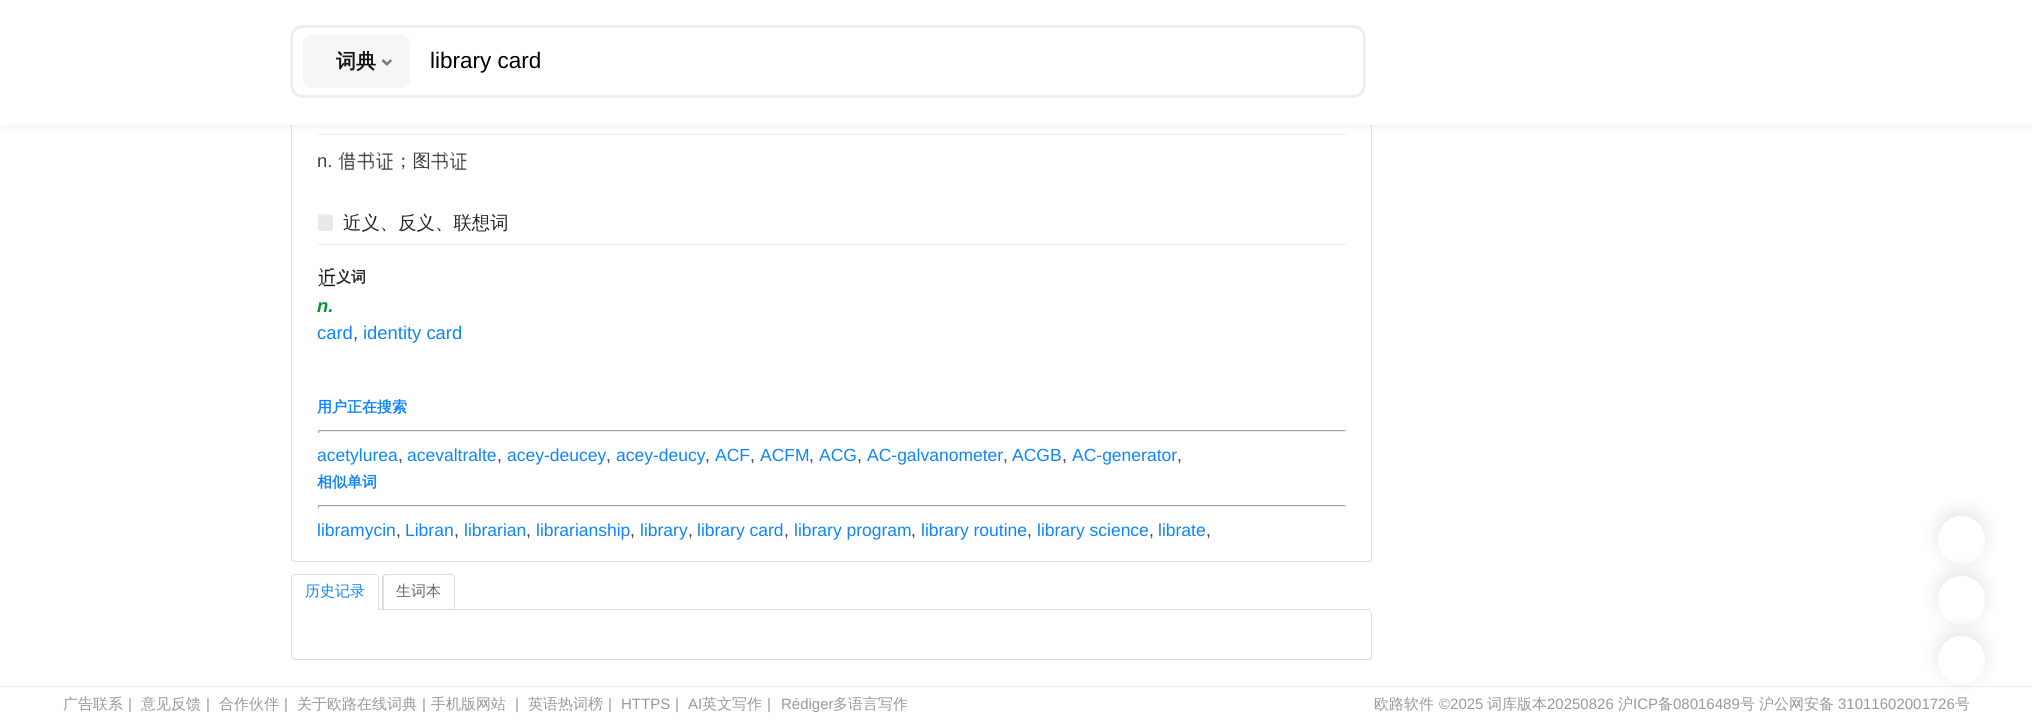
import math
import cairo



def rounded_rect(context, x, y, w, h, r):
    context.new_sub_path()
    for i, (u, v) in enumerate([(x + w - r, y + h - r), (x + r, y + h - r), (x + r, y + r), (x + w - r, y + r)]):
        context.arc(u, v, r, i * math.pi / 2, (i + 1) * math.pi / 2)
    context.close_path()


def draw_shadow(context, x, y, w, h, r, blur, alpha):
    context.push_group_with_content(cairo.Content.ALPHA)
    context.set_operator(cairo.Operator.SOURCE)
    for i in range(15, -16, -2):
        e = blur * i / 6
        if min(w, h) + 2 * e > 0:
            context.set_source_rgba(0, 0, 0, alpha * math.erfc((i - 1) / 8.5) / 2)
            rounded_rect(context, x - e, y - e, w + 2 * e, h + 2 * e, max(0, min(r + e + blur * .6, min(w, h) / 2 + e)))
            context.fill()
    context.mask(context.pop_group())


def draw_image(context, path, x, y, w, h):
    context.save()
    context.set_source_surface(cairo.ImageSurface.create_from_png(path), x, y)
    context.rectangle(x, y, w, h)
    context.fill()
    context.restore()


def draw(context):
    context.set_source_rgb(1, 1, 1)
    context.paint()
    context.set_source_rgb(221 / 255, 221 / 255, 221 / 255)
    context.set_fill_rule(cairo.FillRule.EVEN_ODD)
    context.new_path()
    context.move_to(291, 51)
    context.line_to(1369, 51)
    context.curve_to(1371, 51, 1372, 53, 1372, 55)
    context.line_to(1372, 559)
    context.curve_to(1372, 561, 1371, 562, 1369, 562)
    context.line_to(295, 562)
    context.curve_to(293, 562, 291, 561, 291, 559)
    context.close_path()
    context.move_to(292, 51)
    context.line_to(1369, 51)
    context.curve_to(1370, 51, 1371, 53, 1371, 55)
    context.line_to(1371, 559)
    context.curve_to(1371, 560, 1370, 561, 1369, 561)
    context.line_to(295, 561)
    context.curve_to(294, 561, 292, 560, 292, 559)
    context.close_path()
    context.fill()
    context.set_source_rgb(232 / 255, 233 / 255, 235 / 255)
    context.rectangle(318, 134, 1028, 1)
    context.fill()
    context.set_source_rgb(0, 0, 0)
    draw_shadow(context, 0, 3, 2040, 125, 0, 2.5, 0.04)
    context.set_source_rgb(1, 1, 1)
    context.rectangle(0, 1, 2032, 124)
    context.fill()
    rounded_rect(context, 291.5, 26.5, 1073, 70, 11.5)
    context.set_source_rgb(238 / 255, 238 / 255, 238 / 255)
    context.set_line_width(3)
    context.stroke()
    context.set_source_rgb(245 / 255, 246 / 255, 247 / 255)
    rounded_rect(context, 303, 35, 107, 53, 8)
    context.fill()
    context.set_source_rgb(123 / 255, 123 / 255, 124 / 255)
    context.set_fill_rule(cairo.FillRule.WINDING)
    context.new_path()
    context.move_to(392, 61)
    context.line_to(387, 66)
    context.line_to(387, 62.5)
    context.line_to(390.5, 59)
    context.close_path()
    context.move_to(387, 66)
    context.line_to(381.5, 61)
    context.line_to(383.5, 59)
    context.line_to(387, 62.5)
    context.close_path()
    context.fill()
    draw_image(context, "images/1.png", 338, 152, 18, 18)
    draw_image(context, "images/2.png", 357, 152, 17, 18)
    draw_image(context, "images/3.png", 376, 152, 17, 18)
    draw_image(context, "images/4.png", 431, 152, 17, 18)
    draw_image(context, "images/5.png", 449, 152, 18, 18)
    context.set_source_rgb(232 / 255, 233 / 255, 235 / 255)
    context.rectangle(318, 244, 1028, 1)
    context.fill()
    context.save()
    context.rectangle(318, 213, 1028, 31)
    context.clip()
    context.new_path()
    context.move_to(333, 217)
    context.line_to(333, 226.5)
    context.curve_to(333, 232.5, 330.5, 231, 325, 231)
    context.curve_to(323, 231, 317, 232, 317, 228.5)
    context.line_to(317, 219)
    context.curve_to(317, 213, 320, 214.5, 325, 214.5)
    context.curve_to(327, 214.5, 333, 213.5, 333, 217)
    context.close_path()
    context.fill()
    context.restore()
    draw_image(context, "images/6.png", 318, 268, 18, 19)
    context.set_source_rgb(159 / 255, 159 / 255, 159 / 255)
    context.rectangle(318, 430, 1028, 1)
    context.fill()
    context.set_source_rgb(238 / 255, 238 / 255, 238 / 255)
    context.rectangle(1345, 430, 1, 3)
    context.fill()
    context.rectangle(318, 431, 1028, 1)
    context.fill()
    context.set_source_rgb(159 / 255, 159 / 255, 159 / 255)
    context.rectangle(318, 430, 1, 3)
    context.fill()
    context.rectangle(318, 505, 1028, 1)
    context.fill()
    context.set_source_rgb(238 / 255, 238 / 255, 238 / 255)
    context.rectangle(1345, 505, 1, 3)
    context.fill()
    context.rectangle(318, 506, 1028, 1)
    context.fill()
    context.set_source_rgb(159 / 255, 159 / 255, 159 / 255)
    context.rectangle(318, 505, 1, 3)
    context.fill()
    context.set_source_rgb(221 / 255, 221 / 255, 221 / 255)
    context.rectangle(379, 609, 991, 1)
    context.fill()
    context.set_fill_rule(cairo.FillRule.EVEN_ODD)
    context.new_path()
    context.move_to(295, 574)
    context.line_to(375, 574)
    context.curve_to(377, 574, 379, 575, 379, 578)
    context.line_to(379, 610)
    context.line_to(291, 610)
    context.line_to(291, 578)
    context.curve_to(291, 575, 293, 574, 295, 574)
    context.close_path()
    context.move_to(295, 575)
    context.line_to(375, 575)
    context.curve_to(376, 575, 378, 576, 378, 578)
    context.line_to(378, 610)
    context.line_to(292, 610)
    context.line_to(292, 578)
    context.curve_to(292, 576, 294, 575, 295, 575)
    context.close_path()
    context.fill()
    context.set_source_rgb(1, 1, 1)
    context.rectangle(293, 575, 85, 2)
    context.fill()
    context.set_source_rgb(221 / 255, 221 / 255, 221 / 255)
    context.new_path()
    context.move_to(386, 574)
    context.line_to(451, 574)
    context.curve_to(453, 574, 455, 575, 455, 578)
    context.line_to(455, 609)
    context.line_to(382, 609)
    context.line_to(382, 578)
    context.curve_to(382, 575, 384, 574, 386, 574)
    context.close_path()
    context.move_to(386, 575)
    context.line_to(451, 575)
    context.curve_to(453, 575, 454, 576, 454, 578)
    context.line_to(454, 609)
    context.line_to(384, 609)
    context.line_to(384, 578)
    context.curve_to(384, 576, 385, 575, 386, 575)
    context.close_path()
    context.fill()
    context.new_path()
    context.move_to(291, 610)
    context.line_to(1369, 610)
    context.curve_to(1371, 610, 1372, 612, 1372, 614)
    context.line_to(1372, 656)
    context.curve_to(1372, 658, 1371, 660, 1369, 660)
    context.line_to(295, 660)
    context.curve_to(293, 660, 291, 658, 291, 656)
    context.close_path()
    context.move_to(292, 610)
    context.line_to(1369, 610)
    context.curve_to(1370, 610, 1371, 612, 1371, 614)
    context.line_to(1371, 656)
    context.curve_to(1371, 658, 1370, 659, 1369, 659)
    context.line_to(295, 659)
    context.curve_to(294, 659, 292, 658, 292, 656)
    context.close_path()
    context.fill()
    context.set_source_rgb(0, 0, 0)
    draw_shadow(context, 1938, 511, 47, 48, 23.5, 9, 0.1)
    context.set_source_rgb(1, 1, 1)
    rounded_rect(context, 1938, 516, 47, 48, 23.5)
    context.fill()
    context.set_source_rgb(0, 0, 0)
    draw_shadow(context, 1938, 571, 47, 48, 23.5, 9, 0.1)
    context.set_source_rgb(1, 1, 1)
    rounded_rect(context, 1938, 576, 47, 48, 23.5)
    context.fill()
    context.set_source_rgb(237 / 255, 237 / 255, 237 / 255)
    context.rectangle(0, 686, 2032, 1)
    context.fill()
    context.set_source_rgb(0, 0, 0)
    draw_shadow(context, 1938, 631, 47, 48, 23.5, 9, 0.1)
    context.set_source_rgb(1, 1, 1)
    rounded_rect(context, 1938, 636, 47, 48, 23.5)
    context.fill()
    context.select_font_face("WenQuanYi Zen Hei", cairo.FontSlant.NORMAL, cairo.FontWeight.BOLD)
    context.set_font_size(20)
    context.set_source_rgb(19 / 255, 20 / 255, 21 / 255)
    context.move_to(336, 68)
    context.show_text("词典")
    context.select_font_face("Liberation Sans")
    context.set_font_size(22.5)
    context.set_source_rgb(0, 0, 0)
    context.move_to(430, 68)
    context.show_text("library card")
    context.set_font_size(18.4)
    context.set_source_rgb(62 / 255, 62 / 255, 62 / 255)
    context.move_to(317, 167)
    context.show_text("n.")
    context.select_font_face("WenQuanYi Zen Hei Medium")
    context.move_to(394, 167)
    context.show_text("；图")
    context.set_source_rgb(37 / 255, 37 / 255, 37 / 255)
    context.move_to(343, 229)
    context.show_text("近义、反义、联想词")
    context.select_font_face("WenQuanYi Zen Hei", cairo.FontSlant.NORMAL, cairo.FontWeight.BOLD)
    context.set_font_size(15)
    context.move_to(336, 282)
    context.show_text("义词")
    context.select_font_face("Liberation Sans", cairo.FontSlant.ITALIC, cairo.FontWeight.BOLD)
    context.set_font_size(18.4)
    context.set_source_rgb(0, 153 / 255, 51 / 255)
    context.move_to(317, 312)
    context.show_text("n.")
    context.select_font_face("Liberation Sans")
    context.set_source_rgb(13 / 255, 133 / 255, 1)
    context.move_to(317, 339)
    context.show_text("card")
    context.set_source_rgb(68 / 255, 68 / 255, 68 / 255)
    context.move_to(353, 339)
    context.show_text(",")
    context.set_source_rgb(13 / 255, 133 / 255, 1)
    context.move_to(363, 339)
    context.show_text("identity card")
    context.select_font_face("WenQuanYi Zen Hei", cairo.FontSlant.NORMAL, cairo.FontWeight.BOLD)
    context.set_font_size(15)
    context.move_to(317, 412)
    context.show_text("用户正在搜索")
    context.select_font_face("Liberation Sans")
    context.set_font_size(17.5)
    context.move_to(317, 461)
    context.show_text("acetylurea")
    context.set_source_rgb(68 / 255, 68 / 255, 68 / 255)
    context.move_to(398, 461)
    context.show_text(",")
    context.set_source_rgb(13 / 255, 133 / 255, 1)
    context.move_to(407, 461)
    context.show_text("acevaltralte")
    context.set_source_rgb(68 / 255, 68 / 255, 68 / 255)
    context.move_to(497, 461)
    context.show_text(",")
    context.set_source_rgb(13 / 255, 133 / 255, 1)
    context.move_to(507, 461)
    context.show_text("acey-deucey")
    context.set_source_rgb(68 / 255, 68 / 255, 68 / 255)
    context.move_to(606, 461)
    context.show_text(",")
    context.set_source_rgb(13 / 255, 133 / 255, 1)
    context.move_to(616, 461)
    context.show_text("acey-deucy")
    context.set_source_rgb(68 / 255, 68 / 255, 68 / 255)
    context.move_to(705, 461)
    context.show_text(",")
    context.set_source_rgb(13 / 255, 133 / 255, 1)
    context.move_to(715, 461)
    context.show_text("ACF")
    context.set_source_rgb(68 / 255, 68 / 255, 68 / 255)
    context.move_to(750, 461)
    context.show_text(",")
    context.set_source_rgb(13 / 255, 133 / 255, 1)
    context.move_to(760, 461)
    context.show_text("ACFM")
    context.set_source_rgb(68 / 255, 68 / 255, 68 / 255)
    context.move_to(809, 461)
    context.show_text(",")
    context.set_source_rgb(13 / 255, 133 / 255, 1)
    context.move_to(819, 461)
    context.show_text("ACG")
    context.set_source_rgb(68 / 255, 68 / 255, 68 / 255)
    context.move_to(857, 461)
    context.show_text(",")
    context.set_source_rgb(13 / 255, 133 / 255, 1)
    context.move_to(867, 461)
    context.show_text("AC-galvanometer")
    context.set_source_rgb(68 / 255, 68 / 255, 68 / 255)
    context.move_to(1003, 461)
    context.show_text(",")
    context.set_source_rgb(13 / 255, 133 / 255, 1)
    context.move_to(1012, 461)
    context.show_text("ACGB")
    context.set_source_rgb(68 / 255, 68 / 255, 68 / 255)
    context.move_to(1062, 461)
    context.show_text(",")
    context.set_source_rgb(13 / 255, 133 / 255, 1)
    context.move_to(1072, 461)
    context.show_text("AC-generator")
    context.set_source_rgb(68 / 255, 68 / 255, 68 / 255)
    context.move_to(1177, 461)
    context.show_text(",")
    context.select_font_face("WenQuanYi Zen Hei", cairo.FontSlant.NORMAL, cairo.FontWeight.BOLD)
    context.set_font_size(15)
    context.set_source_rgb(13 / 255, 133 / 255, 1)
    context.move_to(317, 487)
    context.show_text("相似单词")
    context.select_font_face("Liberation Sans")
    context.set_font_size(17.5)
    context.move_to(317, 536)
    context.show_text("libramycin")
    context.set_source_rgb(68 / 255, 68 / 255, 68 / 255)
    context.move_to(396, 536)
    context.show_text(",")
    context.set_source_rgb(13 / 255, 133 / 255, 1)
    context.move_to(405, 536)
    context.show_text("Libran")
    context.set_source_rgb(68 / 255, 68 / 255, 68 / 255)
    context.move_to(454, 536)
    context.show_text(",")
    context.set_source_rgb(13 / 255, 133 / 255, 1)
    context.move_to(464, 536)
    context.show_text("librarian")
    context.set_source_rgb(68 / 255, 68 / 255, 68 / 255)
    context.move_to(526, 536)
    context.show_text(",")
    context.set_source_rgb(13 / 255, 133 / 255, 1)
    context.move_to(536, 536)
    context.show_text("librarianship")
    context.set_source_rgb(68 / 255, 68 / 255, 68 / 255)
    context.move_to(630, 536)
    context.show_text(",")
    context.set_source_rgb(13 / 255, 133 / 255, 1)
    context.move_to(640, 536)
    context.show_text("library")
    context.set_source_rgb(68 / 255, 68 / 255, 68 / 255)
    context.move_to(688, 536)
    context.show_text(",")
    context.set_source_rgb(13 / 255, 133 / 255, 1)
    context.move_to(697, 536)
    context.show_text("library card")
    context.set_source_rgb(68 / 255, 68 / 255, 68 / 255)
    context.move_to(784, 536)
    context.show_text(",")
    context.set_source_rgb(13 / 255, 133 / 255, 1)
    context.move_to(794, 536)
    context.show_text("library program")
    context.set_source_rgb(68 / 255, 68 / 255, 68 / 255)
    context.move_to(911, 536)
    context.show_text(",")
    context.set_source_rgb(13 / 255, 133 / 255, 1)
    context.move_to(921, 536)
    context.show_text("library routine")
    context.set_source_rgb(68 / 255, 68 / 255, 68 / 255)
    context.move_to(1027, 536)
    context.show_text(",")
    context.set_source_rgb(13 / 255, 133 / 255, 1)
    context.move_to(1037, 536)
    context.show_text("library science")
    context.set_source_rgb(68 / 255, 68 / 255, 68 / 255)
    context.move_to(1149, 536)
    context.show_text(",")
    context.set_source_rgb(13 / 255, 133 / 255, 1)
    context.move_to(1158, 536)
    context.show_text("librate")
    context.set_source_rgb(68 / 255, 68 / 255, 68 / 255)
    context.move_to(1206, 536)
    context.show_text(",")
    context.select_font_face("WenQuanYi Zen Hei Medium")
    context.set_font_size(15)
    context.set_source_rgb(13 / 255, 133 / 255, 1)
    context.move_to(305, 596)
    context.show_text("历史记录")
    context.set_source_rgb(102 / 255, 102 / 255, 102 / 255)
    context.move_to(396, 596)
    context.show_text("生词本")
    context.set_source_rgb(153 / 255, 153 / 255, 153 / 255)
    context.move_to(63, 709)
    context.show_text("广告联系")
    context.select_font_face("Liberation Sans")
    context.move_to(128, 709)
    context.show_text("|")
    context.select_font_face("WenQuanYi Zen Hei Medium")
    context.move_to(141, 709)
    context.show_text("意见反馈")
    context.select_font_face("Liberation Sans")
    context.move_to(206, 709)
    context.show_text("|")
    context.select_font_face("WenQuanYi Zen Hei Medium")
    context.move_to(219, 709)
    context.show_text("合作伙伴")
    context.select_font_face("Liberation Sans")
    context.move_to(284, 709)
    context.show_text("|")
    context.select_font_face("WenQuanYi Zen Hei Medium")
    context.move_to(297, 709)
    context.show_text("关于欧路在线词典")
    context.select_font_face("Liberation Sans")
    context.move_to(422, 709)
    context.show_text("|")
    context.select_font_face("WenQuanYi Zen Hei Medium")
    context.move_to(431, 709)
    context.show_text("手机版网站")
    context.select_font_face("Liberation Sans")
    context.move_to(515, 709)
    context.show_text("|")
    context.select_font_face("WenQuanYi Zen Hei Medium")
    context.move_to(528, 709)
    context.show_text("英语热词榜")
    context.select_font_face("Liberation Sans")
    context.move_to(608, 709)
    context.show_text("|")
    context.move_to(621, 709)
    context.show_text("HTTPS")
    context.move_to(675, 709)
    context.show_text("|")
    context.move_to(688, 709)
    context.show_text("AI")
    context.select_font_face("WenQuanYi Zen Hei Medium")
    context.move_to(702, 709)
    context.show_text("英文写作")
    context.select_font_face("Liberation Sans")
    context.move_to(767, 709)
    context.show_text("|")
    context.move_to(781, 709)
    context.show_text("Rédiger")
    context.select_font_face("WenQuanYi Zen Hei Medium")
    context.move_to(833, 709)
    context.show_text("多语言写作")
    context.move_to(1374, 709)
    context.show_text("欧路软件")
    context.select_font_face("Liberation Sans")
    context.move_to(1439, 709)
    context.show_text("©2025")
    context.select_font_face("WenQuanYi Zen Hei Medium")
    context.move_to(1487, 709)
    context.show_text("词库版本")
    context.select_font_face("Liberation Sans")
    context.move_to(1547, 709)
    context.show_text("20250826")
    context.select_font_face("WenQuanYi Zen Hei Medium")
    context.move_to(1618, 709)
    context.show_text("沪")
    context.select_font_face("Liberation Sans")
    context.move_to(1633, 709)
    context.show_text("ICP")
    context.select_font_face("WenQuanYi Zen Hei Medium")
    context.move_to(1658, 709)
    context.show_text("备")
    context.select_font_face("Liberation Sans")
    context.move_to(1673, 709)
    context.show_text("08016489")
    context.select_font_face("WenQuanYi Zen Hei Medium")
    context.move_to(1740, 709)
    context.show_text("号")
    context.move_to(1759, 709)
    context.show_text("沪公网安备")
    context.select_font_face("Liberation Sans")
    context.move_to(1838, 709)
    context.show_text("31011602001726")
    context.select_font_face("WenQuanYi Zen Hei Medium")
    context.move_to(1955, 709)
    context.show_text("号")


surface = cairo.ImageSurface(cairo.Format.RGB24, 2032, 721)
context = cairo.Context(surface)
options = cairo.FontOptions()
options.set_hint_metrics(cairo.HintMetrics.OFF)
options.set_hint_style(cairo.HintStyle.NONE)
context.set_font_options(options)
context.set_miter_limit(4)
draw(context)
surface.write_to_png("out.png")
